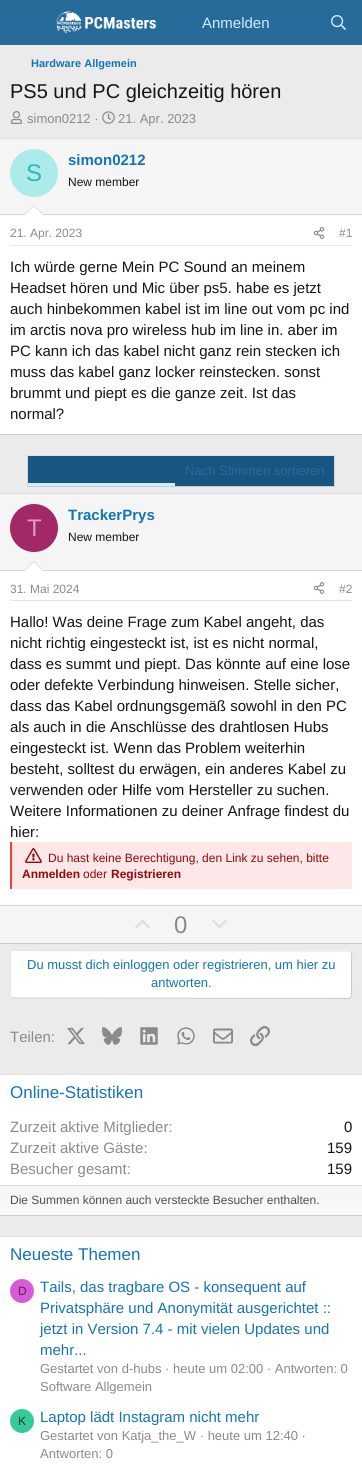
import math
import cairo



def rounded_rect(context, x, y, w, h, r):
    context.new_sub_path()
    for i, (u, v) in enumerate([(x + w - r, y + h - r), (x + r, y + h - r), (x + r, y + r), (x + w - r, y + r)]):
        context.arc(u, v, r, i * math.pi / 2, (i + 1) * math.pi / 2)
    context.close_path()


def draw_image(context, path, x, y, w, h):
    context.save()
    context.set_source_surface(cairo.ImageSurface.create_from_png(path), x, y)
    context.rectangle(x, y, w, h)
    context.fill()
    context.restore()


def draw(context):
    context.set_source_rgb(235 / 255, 235 / 255, 235 / 255)
    context.paint()
    context.set_source_rgb(39 / 255, 107 / 255, 155 / 255)
    context.rectangle(0, 0, 362, 45)
    context.fill()
    draw_image(context, "images/1.png", 56, 11, 100, 23)
    draw_image(context, "images/2.png", 331, 15, 15, 15)
    draw_image(context, "images/3.png", 10, 111, 13, 13)
    draw_image(context, "images/4.png", 102, 111, 13, 13)
    context.set_source_rgb(1, 1, 1)
    context.rectangle(0, 215, 362, 219)
    context.fill()
    context.set_source_rgb(224 / 255, 224 / 255, 224 / 255)
    context.rectangle(0, 138, 362, 1)
    context.fill()
    context.set_source_rgb(204 / 255, 204 / 255, 204 / 255)
    context.rectangle(0, 434, 362, 1)
    context.fill()
    context.set_source_rgb(245 / 255, 245 / 255, 245 / 255)
    context.rectangle(0, 139, 362, 75)
    context.fill()
    context.set_source_rgb(214 / 255, 214 / 255, 214 / 255)
    context.rectangle(0, 214, 362, 1)
    context.fill()
    context.set_source_rgb(173 / 255, 235 / 255, 235 / 255)
    context.arc(34, 173, 24, 0, 2 * math.pi)
    context.fill()
    context.set_source_rgb(214 / 255, 214 / 255, 214 / 255)
    context.new_path()
    context.move_to(44, 215)
    context.line_to(24, 215)
    context.line_to(34, 205)
    context.close_path()
    context.fill()
    context.set_source_rgb(1, 1, 1)
    context.new_path()
    context.move_to(43, 215)
    context.line_to(25, 215)
    context.line_to(34, 206)
    context.close_path()
    context.fill()
    context.set_source_rgb(230 / 255, 230 / 255, 230 / 255)
    context.rectangle(10, 245, 342, 1)
    context.fill()
    draw_image(context, "images/5.png", 313, 227, 12, 12)
    context.set_source_rgb(24 / 255, 85 / 255, 129 / 255)
    context.rectangle(28, 456, 306, 30)
    context.fill()
    context.set_source_rgb(224 / 255, 224 / 255, 224 / 255)
    context.rectangle(27, 455, 308, 1)
    context.fill()
    context.set_source_rgb(214 / 255, 214 / 255, 214 / 255)
    context.rectangle(334, 455, 1, 32)
    context.fill()
    context.set_source_rgb(204 / 255, 204 / 255, 204 / 255)
    context.rectangle(27, 486, 308, 1)
    context.fill()
    context.set_source_rgb(214 / 255, 214 / 255, 214 / 255)
    context.rectangle(27, 455, 1, 32)
    context.fill()
    context.set_source_rgb(209 / 255, 235 / 255, 1)
    context.rectangle(28, 483, 147, 3)
    context.fill()
    context.set_source_rgb(1, 1, 1)
    context.rectangle(0, 571, 362, 334)
    context.fill()
    context.set_source_rgb(224 / 255, 224 / 255, 224 / 255)
    context.rectangle(0, 493, 362, 1)
    context.fill()
    context.set_source_rgb(204 / 255, 204 / 255, 204 / 255)
    context.rectangle(0, 943, 362, 1)
    context.fill()
    context.set_source_rgb(245 / 255, 245 / 255, 245 / 255)
    context.rectangle(0, 494, 362, 76)
    context.fill()
    context.set_source_rgb(214 / 255, 214 / 255, 214 / 255)
    context.rectangle(0, 570, 362, 1)
    context.fill()
    context.set_source_rgb(163 / 255, 41 / 255, 102 / 255)
    context.arc(34, 528, 24, 0, 2 * math.pi)
    context.fill()
    context.set_source_rgb(214 / 255, 214 / 255, 214 / 255)
    context.new_path()
    context.move_to(44, 571)
    context.line_to(24, 571)
    context.line_to(34, 561)
    context.close_path()
    context.fill()
    context.set_source_rgb(1, 1, 1)
    context.new_path()
    context.move_to(43, 571)
    context.line_to(25, 571)
    context.line_to(34, 562)
    context.close_path()
    context.fill()
    context.set_source_rgb(230 / 255, 230 / 255, 230 / 255)
    context.rectangle(10, 600, 342, 1)
    context.fill()
    draw_image(context, "images/5.png", 313, 582, 12, 12)
    context.set_source_rgb(254 / 255, 231 / 255, 232 / 255)
    context.rectangle(12, 842, 340, 47)
    context.fill()
    context.set_source_rgb(245 / 255, 61 / 255, 67 / 255)
    context.rectangle(10, 842, 2, 47)
    context.fill()
    draw_image(context, "images/6.png", 25, 848, 17, 15)
    context.set_source_rgb(245 / 255, 245 / 255, 245 / 255)
    context.rectangle(0, 906, 362, 37)
    context.fill()
    context.set_source_rgb(214 / 255, 214 / 255, 214 / 255)
    context.rectangle(0, 905, 362, 1)
    context.fill()
    draw_image(context, "images/7.png", 135, 919, 15, 10)
    draw_image(context, "images/8.png", 212, 919, 15, 10)
    context.set_source_rgb(1, 1, 1)
    rounded_rect(context, 10, 950, 342, 49, 4)
    context.fill()
    context.new_path()
    context.move_to(350.5, 951.5)
    context.curve_to(352.5, 953.5, 351.5, 959.5, 351.5, 961)
    context.line_to(351.5, 988)
    context.curve_to(351.5, 990.5, 353, 998.5, 348, 998.5)
    context.line_to(12.5, 998)
    context.line_to(11.5, 997.5)
    context.set_source_rgb(201 / 255, 201 / 255, 201 / 255)
    context.set_line_width(1)
    context.stroke()
    context.new_path()
    context.move_to(11.5, 997.5)
    context.curve_to(9.5, 995.5, 10.5, 989.5, 10.5, 988)
    context.line_to(10.5, 961)
    context.curve_to(10.5, 958.5, 9, 950.5, 14, 950.5)
    context.line_to(349.5, 951)
    context.line_to(350.5, 951.5)
    context.set_source_rgb(227 / 255, 227 / 255, 227 / 255)
    context.stroke()
    draw_image(context, "images/9.png", 67, 1027, 18, 18)
    draw_image(context, "images/10.png", 102, 1027, 20, 18)
    draw_image(context, "images/11.png", 140, 1027, 18, 18)
    draw_image(context, "images/12.png", 177, 1027, 18, 18)
    draw_image(context, "images/13.png", 213, 1028, 20, 16)
    draw_image(context, "images/14.png", 250, 1026, 20, 20)
    context.set_source_rgb(1, 1, 1)
    context.rectangle(0, 1075, 362, 110)
    context.fill()
    context.set_source_rgb(224 / 255, 224 / 255, 224 / 255)
    context.rectangle(0, 1074, 362, 1)
    context.fill()
    context.set_source_rgb(204 / 255, 204 / 255, 204 / 255)
    context.rectangle(0, 1215, 362, 1)
    context.fill()
    gradient = cairo.LinearGradient(181, 1186, 181, 1215)
    gradient.add_color_stop_rgba(0, 245 / 255, 245 / 255, 245 / 255, 1)
    gradient.add_color_stop_rgba(1, 250 / 255, 250 / 255, 250 / 255, 1)
    context.set_source(gradient)
    context.rectangle(0, 1186, 362, 29)
    context.fill()
    context.set_source_rgb(224 / 255, 224 / 255, 224 / 255)
    context.rectangle(0, 1185, 362, 1)
    context.fill()
    context.set_source_rgb(1, 1, 1)
    context.rectangle(0, 1237, 362, 229)
    context.fill()
    context.set_source_rgb(224 / 255, 224 / 255, 224 / 255)
    context.rectangle(0, 1236, 362, 1)
    context.fill()
    context.set_source_rgb(214 / 255, 92 / 255, 214 / 255)
    context.arc(22, 1291, 12, 0, 2 * math.pi)
    context.fill()
    context.set_source_rgb(51 / 255, 204 / 255, 153 / 255)
    context.arc(22, 1421, 12, 0, 2 * math.pi)
    context.fill()
    context.select_font_face("Liberation Sans")
    context.set_font_size(15)
    context.set_source_rgb(209 / 255, 235 / 255, 1)
    context.move_to(202, 28)
    context.show_text("Anmelden")
    context.select_font_face("Liberation Sans", cairo.FontSlant.NORMAL, cairo.FontWeight.BOLD)
    context.set_font_size(11)
    context.set_source_rgb(20 / 255, 116 / 255, 184 / 255)
    context.move_to(31, 67)
    context.show_text("Hardware Allgemein")
    context.select_font_face("Liberation Sans")
    context.set_font_size(20)
    context.set_source_rgb(20 / 255, 20 / 255, 20 / 255)
    context.move_to(10, 98)
    context.show_text("PS5 und PC gleichzeitig hören")
    context.set_font_size(13)
    context.set_source_rgb(138 / 255, 138 / 255, 138 / 255)
    context.move_to(27, 123)
    context.show_text("simon0212 ·")
    context.move_to(118, 123)
    context.show_text("21. Apr. 2023")
    context.set_font_size(24)
    context.set_source_rgb(46 / 255, 184 / 255, 184 / 255)
    context.move_to(26, 181)
    context.show_text("S")
    context.select_font_face("Liberation Sans", cairo.FontSlant.NORMAL, cairo.FontWeight.BOLD)
    context.set_font_size(15)
    context.set_source_rgb(20 / 255, 116 / 255, 184 / 255)
    context.move_to(68, 165)
    context.show_text("simon0212")
    context.select_font_face("Liberation Sans")
    context.set_font_size(12)
    context.set_source_rgb(20 / 255, 20 / 255, 20 / 255)
    context.move_to(68, 186)
    context.show_text("New member")
    context.set_source_rgb(138 / 255, 138 / 255, 138 / 255)
    context.move_to(10, 237)
    context.show_text("21. Apr. 2023")
    context.move_to(339, 237)
    context.show_text("#1")
    context.set_font_size(15)
    context.set_source_rgb(20 / 255, 20 / 255, 20 / 255)
    context.move_to(10, 272)
    context.show_text("Ich würde gerne Mein PC Sound an meinem")
    context.move_to(10, 293)
    context.show_text("Headset hören und Mic über ps5. habe es jetzt")
    context.move_to(10, 314)
    context.show_text("auch hinbekommen kabel ist im line out vom pc ind")
    context.move_to(10, 335)
    context.show_text("im arctis nova pro wireless hub im line in. aber im")
    context.move_to(10, 356)
    context.show_text("PC kann ich das kabel nicht ganz rein stecken ich")
    context.move_to(10, 377)
    context.show_text("muss das kabel ganz locker reinstecken. sonst")
    context.move_to(10, 398)
    context.show_text("brummt und piept es die ganze zeit. Ist das")
    context.move_to(10, 419)
    context.show_text("normal?")
    context.set_font_size(13)
    context.set_source_rgb(39 / 255, 107 / 255, 155 / 255)
    context.move_to(185, 475)
    context.show_text("Nach Stimmen sortieren")
    context.set_font_size(24)
    context.set_source_rgb(230 / 255, 153 / 255, 191 / 255)
    context.move_to(27, 536)
    context.show_text("T")
    context.select_font_face("Liberation Sans", cairo.FontSlant.NORMAL, cairo.FontWeight.BOLD)
    context.set_font_size(15)
    context.set_source_rgb(20 / 255, 116 / 255, 184 / 255)
    context.move_to(68, 520)
    context.show_text("TrackerPrys")
    context.select_font_face("Liberation Sans")
    context.set_font_size(12)
    context.set_source_rgb(20 / 255, 20 / 255, 20 / 255)
    context.move_to(68, 541)
    context.show_text("New member")
    context.set_source_rgb(138 / 255, 138 / 255, 138 / 255)
    context.move_to(10, 593)
    context.show_text("31. Mai 2024")
    context.move_to(339, 593)
    context.show_text("#2")
    context.set_font_size(15)
    context.set_source_rgb(20 / 255, 20 / 255, 20 / 255)
    context.move_to(10, 627)
    context.show_text("Hallo! Was deine Frage zum Kabel angeht, das")
    context.move_to(10, 648)
    context.show_text("nicht richtig eingesteckt ist, ist es nicht normal,")
    context.move_to(10, 669)
    context.show_text("dass es summt und piept. Das könnte auf eine lose")
    context.move_to(10, 690)
    context.show_text("oder defekte Verbindung hinweisen. Stelle sicher,")
    context.move_to(10, 711)
    context.show_text("dass das Kabel ordnungsgemäß sowohl in den PC")
    context.move_to(10, 732)
    context.show_text("als auch in die Anschlüsse des drahtlosen Hubs")
    context.move_to(10, 753)
    context.show_text("eingesteckt ist. Wenn das Problem weiterhin")
    context.move_to(10, 774)
    context.show_text("besteht, solltest du erwägen, ein anderes Kabel zu")
    context.move_to(10, 795)
    context.show_text("verwenden oder Hilfe vom Hersteller zu suchen.")
    context.move_to(10, 816)
    context.show_text("Weitere Informationen zu deiner Anfrage findest du")
    context.move_to(10, 837)
    context.show_text("hier:")
    context.set_font_size(12)
    context.set_source_rgb(145 / 255, 8 / 255, 12 / 255)
    context.move_to(48, 862)
    context.show_text("Du hast keine Berechtigung, den Link zu sehen, bitte")
    context.select_font_face("Liberation Sans", cairo.FontSlant.NORMAL, cairo.FontWeight.BOLD)
    context.move_to(22, 878)
    context.show_text("Anmelden")
    context.select_font_face("Liberation Sans")
    context.move_to(83, 878)
    context.show_text("oder")
    context.select_font_face("Liberation Sans", cairo.FontSlant.NORMAL, cairo.FontWeight.BOLD)
    context.move_to(111, 878)
    context.show_text("Registrieren")
    context.select_font_face("Liberation Sans")
    context.set_font_size(24)
    context.set_source_rgb(138 / 255, 138 / 255, 138 / 255)
    context.move_to(174, 933)
    context.show_text("0")
    context.set_font_size(13)
    context.set_source_rgb(20 / 255, 116 / 255, 184 / 255)
    context.move_to(27, 969)
    context.show_text("Du musst dich einloggen oder registrieren, um hier zu")
    context.move_to(151, 987)
    context.show_text("antworten.")
    context.set_font_size(15)
    context.set_source_rgb(138 / 255, 138 / 255, 138 / 255)
    context.move_to(10, 1042)
    context.show_text("Teilen:")
    context.set_font_size(17)
    context.set_source_rgb(20 / 255, 116 / 255, 184 / 255)
    context.move_to(10, 1098)
    context.show_text("Online-Statistiken")
    context.set_font_size(15)
    context.set_source_rgb(138 / 255, 138 / 255, 138 / 255)
    context.move_to(10, 1132)
    context.show_text("Zurzeit aktive Mitglieder:")
    context.set_source_rgb(20 / 255, 20 / 255, 20 / 255)
    context.move_to(344, 1132)
    context.show_text("0")
    context.set_source_rgb(138 / 255, 138 / 255, 138 / 255)
    context.move_to(10, 1153)
    context.show_text("Zurzeit aktive Gäste:")
    context.set_source_rgb(20 / 255, 20 / 255, 20 / 255)
    context.move_to(327, 1153)
    context.show_text("159")
    context.set_source_rgb(138 / 255, 138 / 255, 138 / 255)
    context.move_to(10, 1174)
    context.show_text("Besucher gesamt:")
    context.set_source_rgb(20 / 255, 20 / 255, 20 / 255)
    context.move_to(327, 1174)
    context.show_text("159")
    context.set_font_size(12)
    context.set_source_rgb(79 / 255, 79 / 255, 79 / 255)
    context.move_to(10, 1204)
    context.show_text("Die Summen können auch versteckte Besucher enthalten.")
    context.set_font_size(17)
    context.set_source_rgb(20 / 255, 116 / 255, 184 / 255)
    context.move_to(10, 1260)
    context.show_text("Neueste Themen")
    context.set_font_size(12)
    context.set_source_rgb(102 / 255, 26 / 255, 102 / 255)
    context.move_to(18, 1295)
    context.show_text("D")
    context.set_font_size(15)
    context.set_source_rgb(20 / 255, 116 / 255, 184 / 255)
    context.move_to(40, 1292)
    context.show_text("Tails, das tragbare OS - konsequent auf")
    context.move_to(40, 1313)
    context.show_text("Privatsphäre und Anonymität ausgerichtet ::")
    context.move_to(40, 1334)
    context.show_text("jetzt in Version 7.4 - mit vielen Updates und")
    context.move_to(40, 1355)
    context.show_text("mehr...")
    context.set_font_size(13)
    context.set_source_rgb(138 / 255, 138 / 255, 138 / 255)
    context.move_to(40, 1373)
    context.show_text("Gestartet von d-hubs · heute um 02:00 · Antworten: 0")
    context.move_to(40, 1391)
    context.show_text("Software Allgemein")
    context.set_font_size(12)
    context.set_source_rgb(15 / 255, 61 / 255, 46 / 255)
    context.move_to(18, 1425)
    context.show_text("K")
    context.set_font_size(15)
    context.set_source_rgb(20 / 255, 116 / 255, 184 / 255)
    context.move_to(40, 1422)
    context.show_text("Laptop lädt Instagram nicht mehr")
    context.set_font_size(13)
    context.set_source_rgb(138 / 255, 138 / 255, 138 / 255)
    context.move_to(40, 1440)
    context.show_text("Gestartet von Katja_the_W · heute um 12:40 ·")
    context.move_to(40, 1458)
    context.show_text("Antworten: 0")


surface = cairo.ImageSurface(cairo.Format.RGB24, 362, 1466)
context = cairo.Context(surface)
options = cairo.FontOptions()
options.set_hint_metrics(cairo.HintMetrics.OFF)
options.set_hint_style(cairo.HintStyle.NONE)
context.set_font_options(options)
context.set_miter_limit(4)
draw(context)
surface.write_to_png("out.png")
